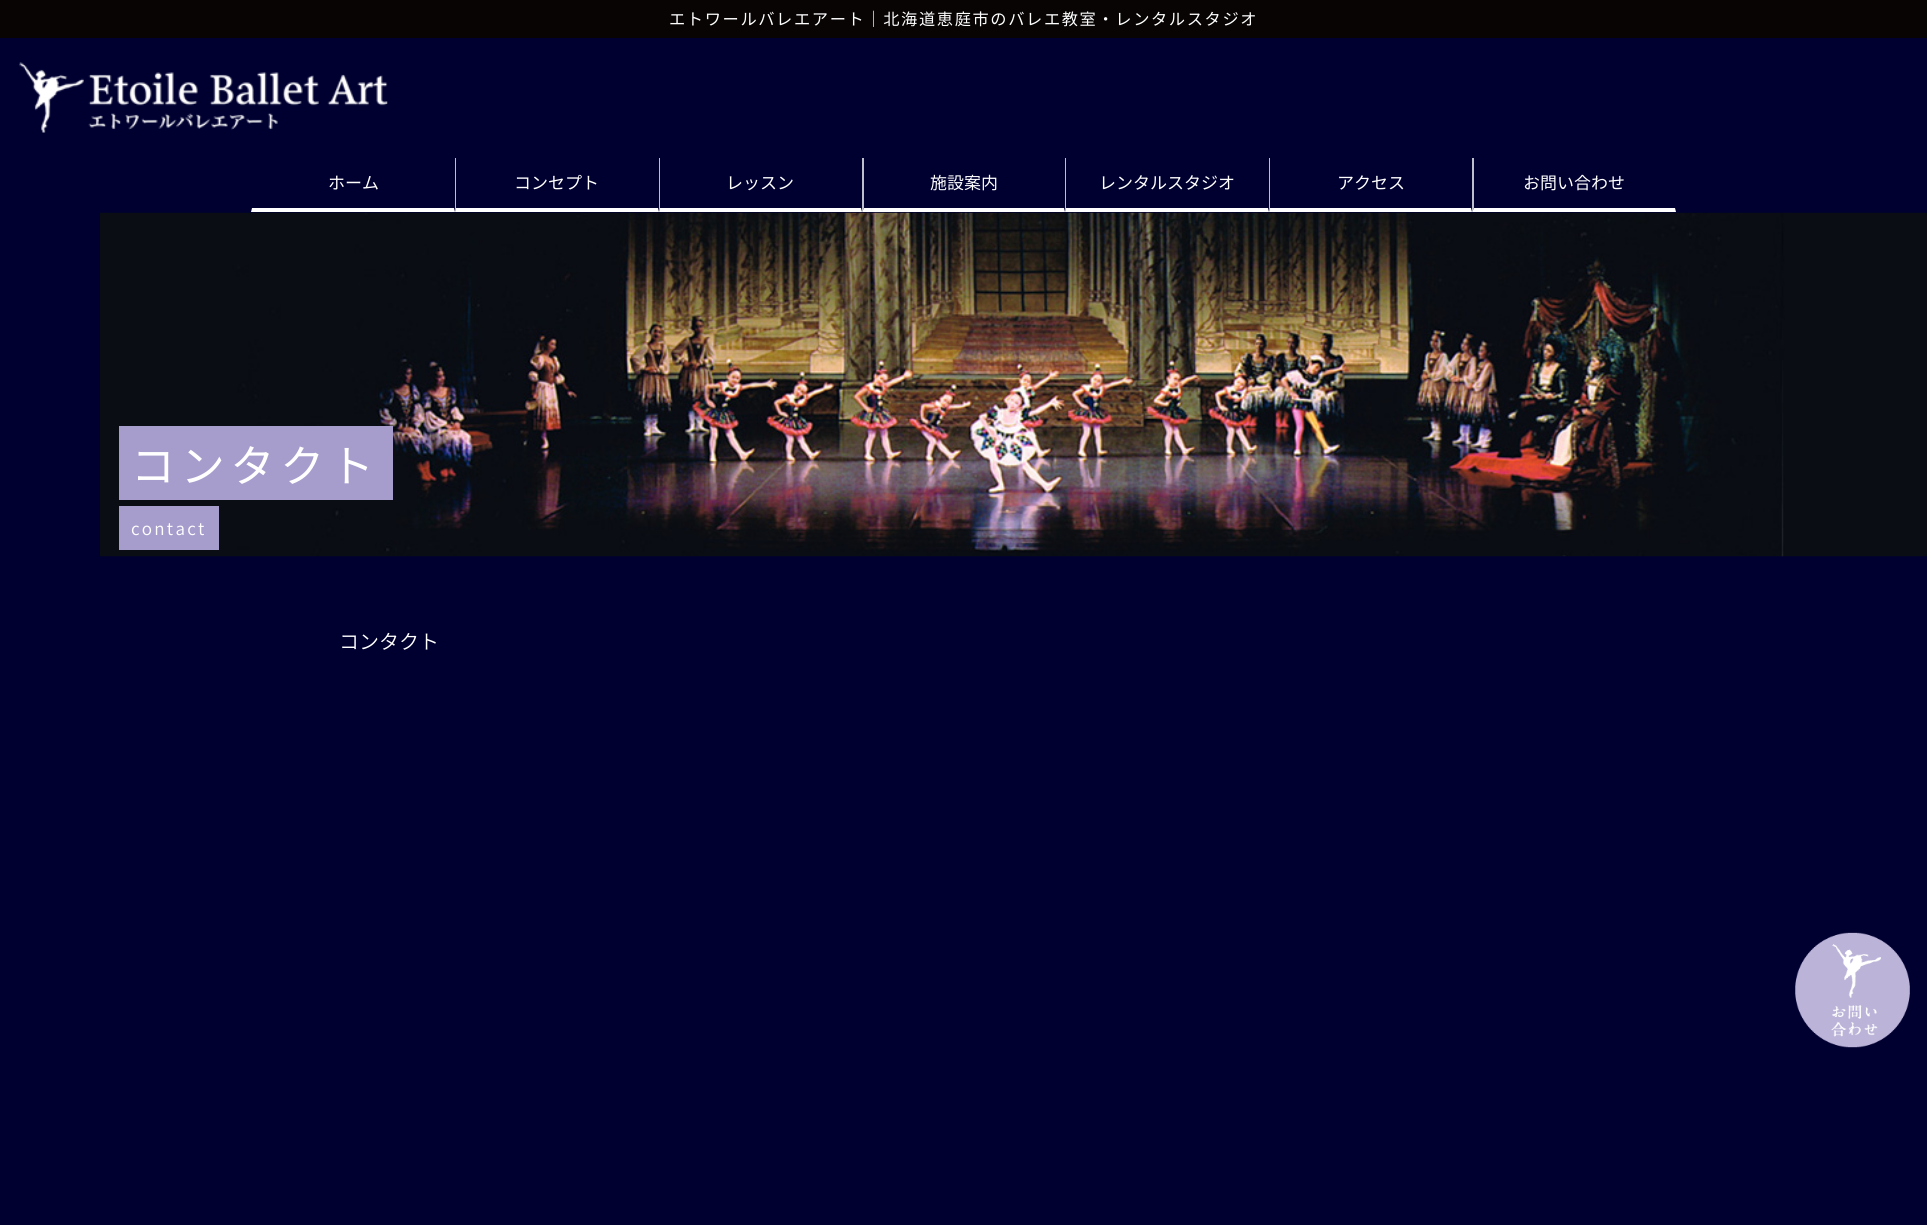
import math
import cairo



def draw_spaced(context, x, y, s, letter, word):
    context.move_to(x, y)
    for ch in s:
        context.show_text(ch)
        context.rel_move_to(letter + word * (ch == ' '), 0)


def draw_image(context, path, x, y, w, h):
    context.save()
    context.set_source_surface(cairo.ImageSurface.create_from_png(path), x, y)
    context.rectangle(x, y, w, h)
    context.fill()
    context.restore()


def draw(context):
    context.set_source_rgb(0, 0, 48 / 255)
    context.paint()
    context.set_source_rgb(8 / 255, 4 / 255, 4 / 255)
    context.rectangle(0, 0, 1927, 38)
    context.fill()
    draw_image(context, "images/1.png", 19, 62, 369, 71)
    context.set_source_rgb(0, 0, 43 / 255)
    context.new_path()
    context.move_to(455, 158)
    context.line_to(455, 212)
    context.line_to(454, 208)
    context.line_to(454, 158)
    context.close_path()
    context.fill()
    context.set_source_rgb(1, 1, 1)
    context.new_path()
    context.move_to(455, 212)
    context.line_to(251, 212)
    context.line_to(252, 208)
    context.line_to(454, 208)
    context.close_path()
    context.fill()
    context.set_source_rgba(0, 0, 0, 0.1)
    context.new_path()
    context.move_to(251, 212)
    context.line_to(251, 158)
    context.line_to(252, 158)
    context.line_to(252, 208)
    context.close_path()
    context.fill()
    context.set_source_rgb(0, 0, 43 / 255)
    context.new_path()
    context.move_to(659, 158)
    context.line_to(659, 212)
    context.line_to(658, 208)
    context.line_to(658, 158)
    context.close_path()
    context.fill()
    context.set_source_rgb(1, 1, 1)
    context.new_path()
    context.move_to(659, 212)
    context.line_to(455, 212)
    context.line_to(456, 208)
    context.line_to(658, 208)
    context.close_path()
    context.fill()
    context.set_source_rgba(1, 1, 1, 0.75)
    context.new_path()
    context.move_to(455, 212)
    context.line_to(455, 158)
    context.line_to(456, 158)
    context.line_to(456, 208)
    context.close_path()
    context.fill()
    context.set_source_rgb(0, 0, 43 / 255)
    context.new_path()
    context.move_to(862, 158)
    context.line_to(862, 212)
    context.line_to(861, 208)
    context.line_to(861, 158)
    context.close_path()
    context.fill()
    context.set_source_rgb(1, 1, 1)
    context.new_path()
    context.move_to(862, 212)
    context.line_to(659, 212)
    context.line_to(660, 208)
    context.line_to(861, 208)
    context.close_path()
    context.fill()
    context.set_source_rgba(1, 1, 1, 0.75)
    context.new_path()
    context.move_to(659, 212)
    context.line_to(659, 158)
    context.line_to(660, 158)
    context.line_to(660, 208)
    context.close_path()
    context.fill()
    context.set_source_rgb(0, 0, 43 / 255)
    context.new_path()
    context.move_to(1065, 158)
    context.line_to(1065, 212)
    context.line_to(1064, 208)
    context.line_to(1064, 158)
    context.close_path()
    context.fill()
    context.set_source_rgb(1, 1, 1)
    context.new_path()
    context.move_to(1065, 212)
    context.line_to(862, 212)
    context.line_to(864, 208)
    context.line_to(1064, 208)
    context.close_path()
    context.fill()
    context.set_source_rgba(1, 1, 1, 0.75)
    context.new_path()
    context.move_to(862, 212)
    context.line_to(862, 158)
    context.line_to(864, 158)
    context.line_to(864, 208)
    context.close_path()
    context.fill()
    context.set_source_rgb(0, 0, 43 / 255)
    context.new_path()
    context.move_to(1269, 158)
    context.line_to(1269, 212)
    context.line_to(1268, 208)
    context.line_to(1268, 158)
    context.close_path()
    context.fill()
    context.set_source_rgb(1, 1, 1)
    context.new_path()
    context.move_to(1269, 212)
    context.line_to(1065, 212)
    context.line_to(1066, 208)
    context.line_to(1268, 208)
    context.close_path()
    context.fill()
    context.set_source_rgba(1, 1, 1, 0.75)
    context.new_path()
    context.move_to(1065, 212)
    context.line_to(1065, 158)
    context.line_to(1066, 158)
    context.line_to(1066, 208)
    context.close_path()
    context.fill()
    context.set_source_rgb(0, 0, 43 / 255)
    context.new_path()
    context.move_to(1472, 158)
    context.line_to(1472, 212)
    context.line_to(1471, 208)
    context.line_to(1471, 158)
    context.close_path()
    context.fill()
    context.set_source_rgb(1, 1, 1)
    context.new_path()
    context.move_to(1472, 212)
    context.line_to(1269, 212)
    context.line_to(1270, 208)
    context.line_to(1471, 208)
    context.close_path()
    context.fill()
    context.set_source_rgba(1, 1, 1, 0.75)
    context.new_path()
    context.move_to(1269, 212)
    context.line_to(1269, 158)
    context.line_to(1270, 158)
    context.line_to(1270, 208)
    context.close_path()
    context.fill()
    context.set_source_rgb(0, 0, 43 / 255)
    context.new_path()
    context.move_to(1676, 158)
    context.line_to(1676, 212)
    context.line_to(1675, 208)
    context.line_to(1675, 158)
    context.close_path()
    context.fill()
    context.set_source_rgb(1, 1, 1)
    context.new_path()
    context.move_to(1676, 212)
    context.line_to(1472, 212)
    context.line_to(1474, 208)
    context.line_to(1675, 208)
    context.close_path()
    context.fill()
    context.set_source_rgba(1, 1, 1, 0.75)
    context.new_path()
    context.move_to(1472, 212)
    context.line_to(1472, 158)
    context.line_to(1474, 158)
    context.line_to(1474, 208)
    context.close_path()
    context.fill()
    draw_image(context, "images/2.png", 100, 212, 1827, 345)
    context.set_source_rgb(167 / 255, 157 / 255, 204 / 255)
    context.rectangle(119, 426, 274, 74)
    context.fill()
    context.rectangle(119, 506, 100, 44)
    context.fill()
    draw_image(context, "images/3.png", 1795, 932, 115, 116)
    context.select_font_face("Noto Sans JP")
    context.set_font_size(16.25)
    context.set_source_rgb(1, 1, 1)
    draw_spaced(context, 669, 25, "エトワールバレエアート｜北海道恵庭市のバレエ教室・レンタルスタジオ", 1.6, 0)
    context.set_font_size(17)
    context.move_to(328, 189)
    context.show_text("ホーム")
    context.move_to(514, 189)
    context.show_text("コンセプト")
    context.move_to(726, 189)
    context.show_text("レッスン")
    context.move_to(930, 189)
    context.show_text("施設案内")
    context.move_to(1099, 189)
    context.show_text("レンタルスタジオ")
    context.move_to(1337, 189)
    context.show_text("アクセス")
    context.move_to(1523, 189)
    context.show_text("お問い合わせ")
    context.set_font_size(44)
    draw_spaced(context, 131, 482, "コンタクト", 5.75, 0)
    context.select_font_face("Noto Sans JP Light")
    context.set_font_size(17)
    draw_spaced(context, 131, 535, "contact", 2.25, 0)
    context.set_font_size(20)
    context.move_to(339, 649)
    context.show_text("コンタクト")


surface = cairo.ImageSurface(cairo.Format.RGB24, 1927, 1225)
context = cairo.Context(surface)
options = cairo.FontOptions()
options.set_hint_metrics(cairo.HintMetrics.OFF)
options.set_hint_style(cairo.HintStyle.NONE)
context.set_font_options(options)
context.set_miter_limit(4)
draw(context)
surface.write_to_png("out.png")
